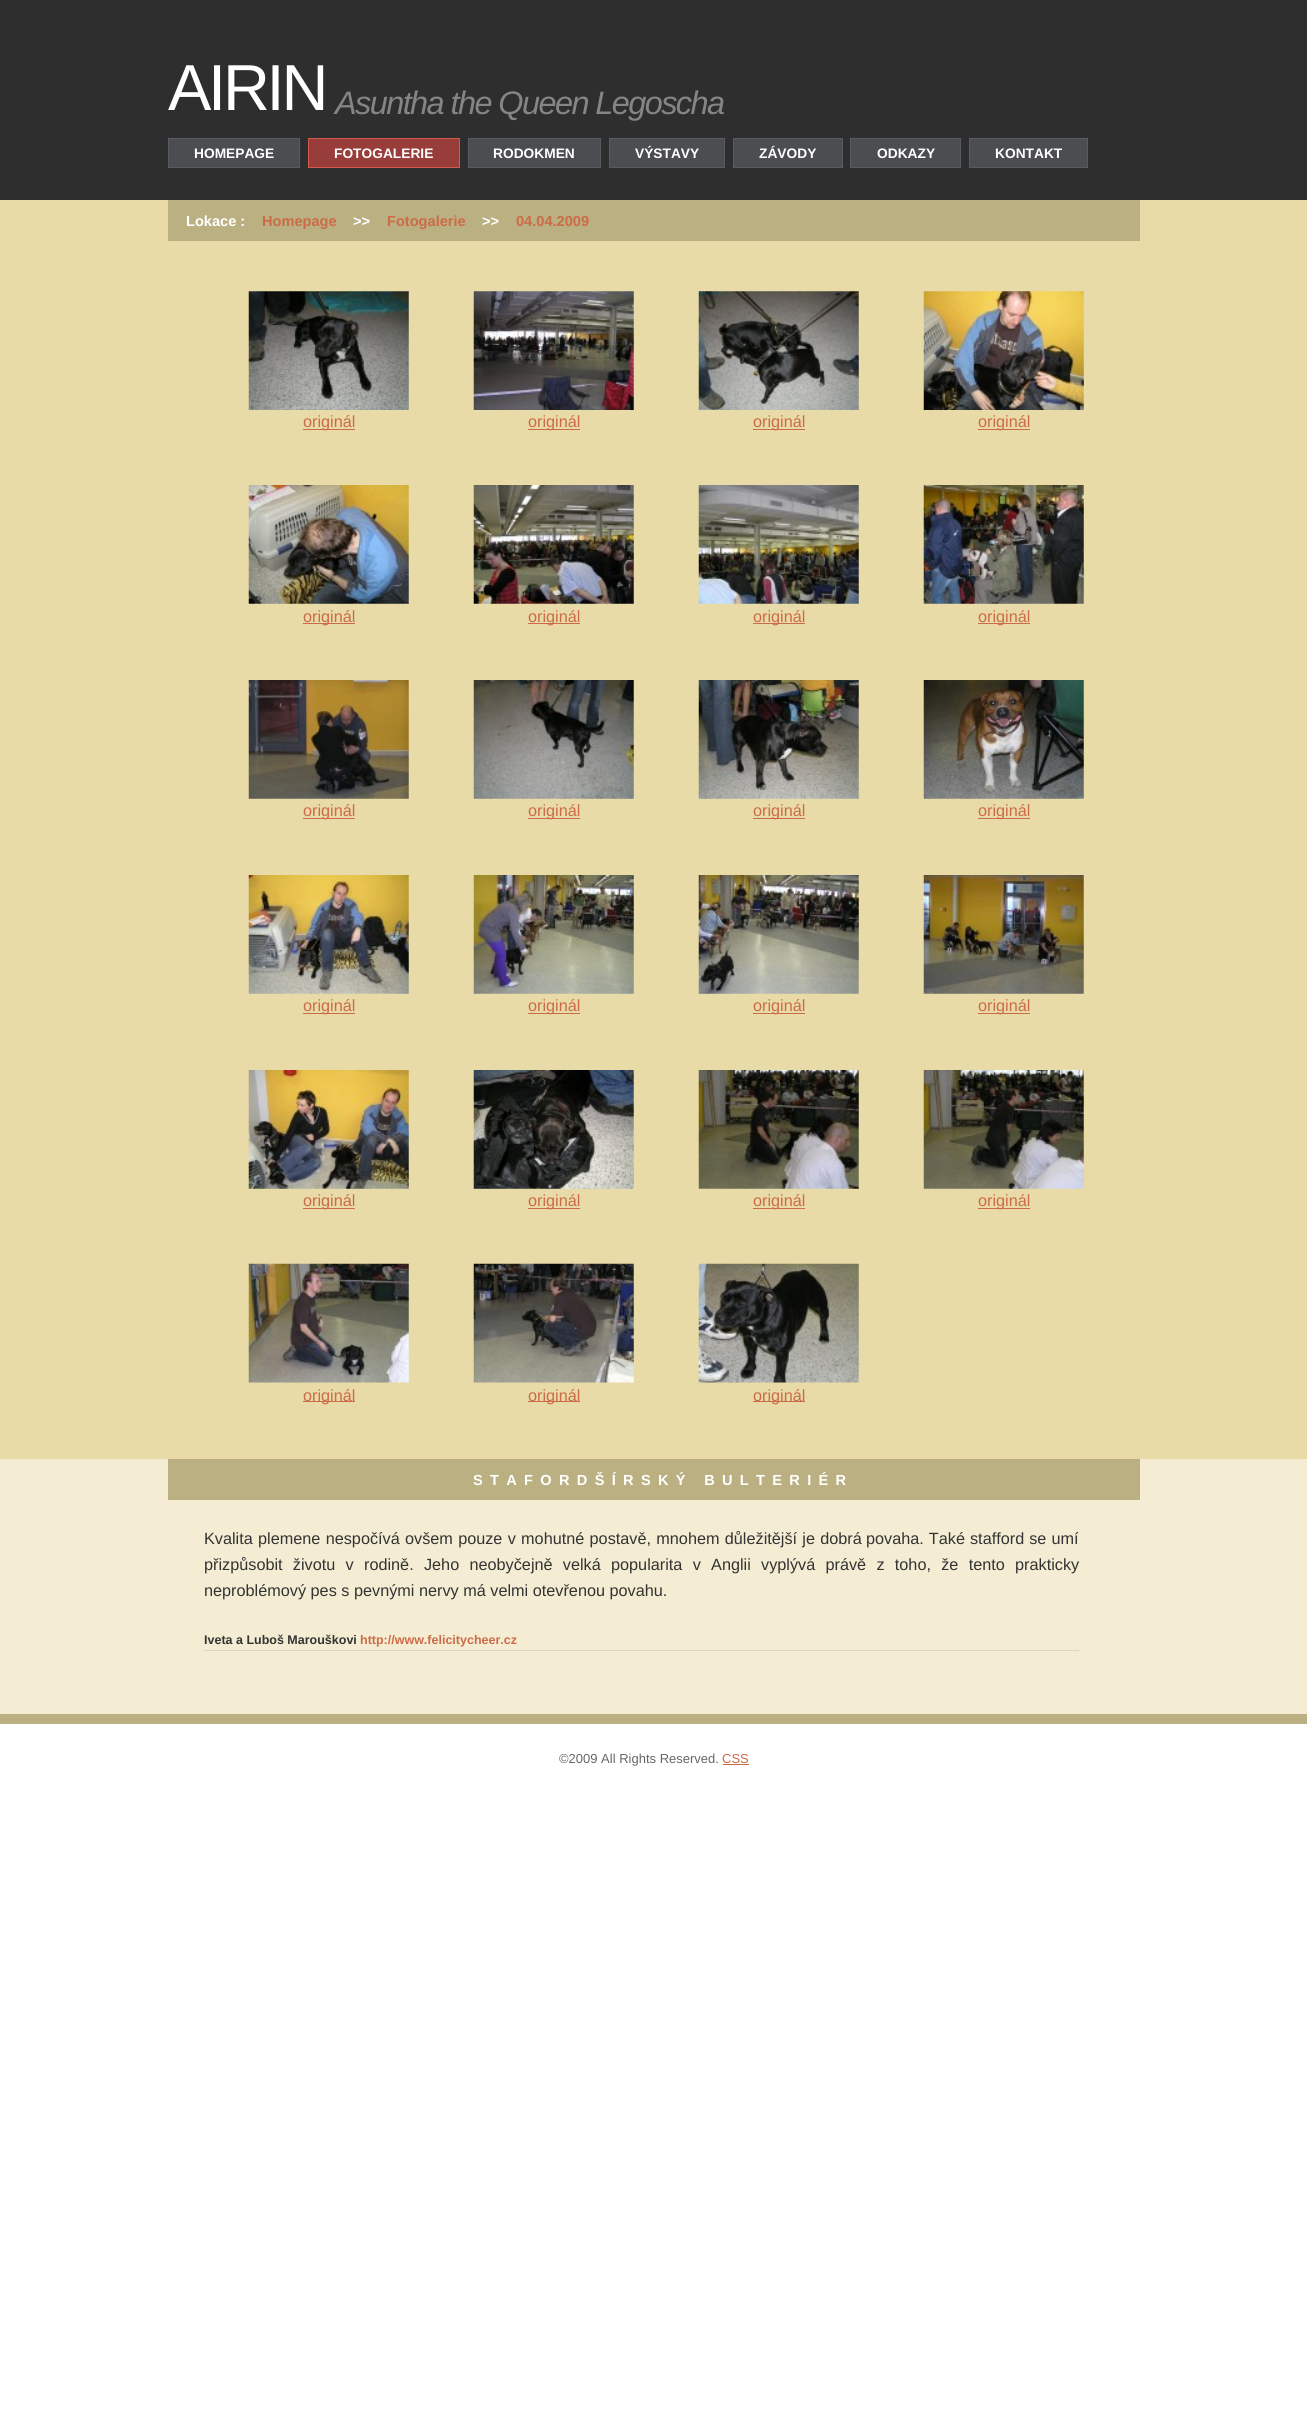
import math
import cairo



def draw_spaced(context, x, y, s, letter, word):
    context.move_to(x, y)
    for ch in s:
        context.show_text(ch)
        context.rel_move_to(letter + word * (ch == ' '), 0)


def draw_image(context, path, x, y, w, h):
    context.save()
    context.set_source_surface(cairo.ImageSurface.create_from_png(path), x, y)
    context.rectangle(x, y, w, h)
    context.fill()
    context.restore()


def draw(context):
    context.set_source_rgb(1, 1, 1)
    context.paint()
    context.set_source_rgb(46 / 255, 46 / 255, 46 / 255)
    context.rectangle(0, 0, 1307, 200)
    context.fill()
    context.set_source_rgb(76 / 255, 77 / 255, 81 / 255)
    context.rectangle(168.5, 138.5, 131, 29)
    context.fill_preserve()
    context.set_source_rgb(87 / 255, 92 / 255, 95 / 255)
    context.set_line_width(1)
    context.stroke()
    context.set_source_rgb(152 / 255, 61 / 255, 58 / 255)
    context.rectangle(308.5, 138.5, 151, 29)
    context.fill_preserve()
    context.set_source_rgb(212 / 255, 89 / 255, 81 / 255)
    context.stroke()
    context.set_source_rgb(76 / 255, 77 / 255, 81 / 255)
    context.rectangle(468.5, 138.5, 132, 29)
    context.fill_preserve()
    context.set_source_rgb(87 / 255, 92 / 255, 95 / 255)
    context.stroke()
    context.set_source_rgb(76 / 255, 77 / 255, 81 / 255)
    context.rectangle(609.5, 138.5, 115, 29)
    context.fill_preserve()
    context.set_source_rgb(87 / 255, 92 / 255, 95 / 255)
    context.stroke()
    context.set_source_rgb(76 / 255, 77 / 255, 81 / 255)
    context.rectangle(733.5, 138.5, 109, 29)
    context.fill_preserve()
    context.set_source_rgb(87 / 255, 92 / 255, 95 / 255)
    context.stroke()
    context.set_source_rgb(76 / 255, 77 / 255, 81 / 255)
    context.rectangle(850.5, 138.5, 110, 29)
    context.fill_preserve()
    context.set_source_rgb(87 / 255, 92 / 255, 95 / 255)
    context.stroke()
    context.set_source_rgb(76 / 255, 77 / 255, 81 / 255)
    context.rectangle(969.5, 138.5, 118, 29)
    context.fill_preserve()
    context.set_source_rgb(87 / 255, 92 / 255, 95 / 255)
    context.stroke()
    context.set_source_rgb(232 / 255, 219 / 255, 167 / 255)
    context.rectangle(0, 200, 1307, 1259)
    context.fill()
    context.set_source_rgb(187 / 255, 176 / 255, 130 / 255)
    context.rectangle(0, 1714, 1307, 10)
    context.fill()
    context.rectangle(168, 200, 972, 41)
    context.fill()
    draw_image(context, "images/1.png", 248, 291, 161, 119)
    context.set_source_rgb(204 / 255, 107 / 255, 71 / 255)
    context.rectangle(303, 429, 52, 1)
    context.fill()
    draw_image(context, "images/2.png", 473, 291, 161, 119)
    context.rectangle(528, 429, 52, 1)
    context.fill()
    draw_image(context, "images/3.png", 698, 291, 161, 119)
    context.rectangle(753, 429, 52, 1)
    context.fill()
    draw_image(context, "images/4.png", 923, 291, 161, 119)
    context.rectangle(978, 429, 52, 1)
    context.fill()
    draw_image(context, "images/5.png", 248, 485, 161, 119)
    context.rectangle(303, 623, 52, 1)
    context.fill()
    draw_image(context, "images/6.png", 473, 485, 161, 119)
    context.rectangle(528, 623, 52, 1)
    context.fill()
    draw_image(context, "images/7.png", 698, 485, 161, 119)
    context.rectangle(753, 623, 52, 1)
    context.fill()
    draw_image(context, "images/8.png", 923, 485, 161, 119)
    context.rectangle(978, 623, 52, 1)
    context.fill()
    draw_image(context, "images/9.png", 248, 680, 161, 119)
    context.rectangle(303, 818, 52, 1)
    context.fill()
    draw_image(context, "images/10.png", 473, 680, 161, 119)
    context.rectangle(528, 818, 52, 1)
    context.fill()
    draw_image(context, "images/11.png", 698, 680, 161, 119)
    context.rectangle(753, 818, 52, 1)
    context.fill()
    draw_image(context, "images/12.png", 923, 680, 161, 119)
    context.rectangle(978, 818, 52, 1)
    context.fill()
    draw_image(context, "images/13.png", 248, 875, 161, 119)
    context.rectangle(303, 1013, 52, 1)
    context.fill()
    draw_image(context, "images/14.png", 473, 875, 161, 119)
    context.rectangle(528, 1013, 52, 1)
    context.fill()
    draw_image(context, "images/15.png", 698, 875, 161, 119)
    context.rectangle(753, 1013, 52, 1)
    context.fill()
    draw_image(context, "images/16.png", 923, 875, 161, 119)
    context.rectangle(978, 1013, 52, 1)
    context.fill()
    draw_image(context, "images/17.png", 248, 1070, 161, 119)
    context.rectangle(303, 1208, 52, 1)
    context.fill()
    draw_image(context, "images/18.png", 473, 1070, 161, 119)
    context.rectangle(528, 1208, 52, 1)
    context.fill()
    draw_image(context, "images/19.png", 698, 1070, 161, 119)
    context.rectangle(753, 1208, 52, 1)
    context.fill()
    draw_image(context, "images/20.png", 923, 1070, 161, 119)
    context.rectangle(978, 1208, 52, 1)
    context.fill()
    draw_image(context, "images/21.png", 248, 1263, 161, 120)
    context.rectangle(303, 1401, 52, 1)
    context.fill()
    draw_image(context, "images/22.png", 473, 1263, 161, 120)
    context.rectangle(528, 1401, 52, 1)
    context.fill()
    draw_image(context, "images/23.png", 698, 1263, 161, 120)
    context.rectangle(753, 1401, 52, 1)
    context.fill()
    context.set_source_rgb(244 / 255, 237 / 255, 211 / 255)
    context.rectangle(0, 1459, 1307, 255)
    context.fill()
    context.set_source_rgb(187 / 255, 176 / 255, 130 / 255)
    context.rectangle(168, 1459, 972, 41)
    context.fill()
    context.set_source_rgb(221 / 255, 215 / 255, 192 / 255)
    context.rectangle(204, 1650, 875, 1)
    context.fill()
    context.set_source_rgb(204 / 255, 107 / 255, 71 / 255)
    context.rectangle(723, 1764, 26, 1)
    context.fill()
    context.select_font_face("Liberation Sans")
    context.set_font_size(65)
    context.set_source_rgb(1, 1, 1)
    draw_spaced(context, 168, 110, "AIRIN", -3.25, 0)
    context.select_font_face("Liberation Sans", cairo.FontSlant.ITALIC)
    context.set_font_size(32.5)
    context.set_source_rgb(133 / 255, 133 / 255, 133 / 255)
    draw_spaced(context, 335, 114, "Asuntha the Queen Legoscha", -1.6, 0)
    context.select_font_face("Liberation Sans", cairo.FontSlant.NORMAL, cairo.FontWeight.BOLD)
    context.set_font_size(13.75)
    context.set_source_rgb(1, 1, 1)
    context.move_to(194, 158)
    context.show_text("HOMEPAGE")
    context.move_to(334, 158)
    context.show_text("FOTOGALERIE")
    context.move_to(493, 158)
    context.show_text("RODOKMEN")
    context.move_to(635, 158)
    context.show_text("VÝSTAVY")
    context.move_to(759, 158)
    context.show_text("ZÁVODY")
    context.move_to(877, 158)
    context.show_text("ODKAZY")
    context.move_to(995, 158)
    context.show_text("KONTAKT")
    context.set_font_size(14.6)
    context.move_to(186, 226)
    context.show_text("Lokace :")
    context.set_source_rgb(204 / 255, 107 / 255, 71 / 255)
    context.move_to(262, 226)
    context.show_text("Homepage")
    context.set_source_rgb(1, 1, 1)
    context.move_to(353, 226)
    context.show_text(">>")
    context.set_source_rgb(204 / 255, 107 / 255, 71 / 255)
    context.move_to(387, 226)
    context.show_text("Fotogalerie")
    context.set_source_rgb(1, 1, 1)
    context.move_to(482, 226)
    context.show_text(">>")
    context.set_source_rgb(204 / 255, 107 / 255, 71 / 255)
    context.move_to(516, 226)
    context.show_text("04.04.2009")
    context.select_font_face("Liberation Sans")
    context.set_font_size(16.25)
    context.move_to(303, 427)
    context.show_text("originál")
    context.move_to(528, 427)
    context.show_text("originál")
    context.move_to(753, 427)
    context.show_text("originál")
    context.move_to(978, 427)
    context.show_text("originál")
    context.move_to(303, 622)
    context.show_text("originál")
    context.move_to(528, 622)
    context.show_text("originál")
    context.move_to(753, 622)
    context.show_text("originál")
    context.move_to(978, 622)
    context.show_text("originál")
    context.move_to(303, 816)
    context.show_text("originál")
    context.move_to(528, 816)
    context.show_text("originál")
    context.move_to(753, 816)
    context.show_text("originál")
    context.move_to(978, 816)
    context.show_text("originál")
    context.move_to(303, 1011)
    context.show_text("originál")
    context.move_to(528, 1011)
    context.show_text("originál")
    context.move_to(753, 1011)
    context.show_text("originál")
    context.move_to(978, 1011)
    context.show_text("originál")
    context.move_to(303, 1206)
    context.show_text("originál")
    context.move_to(528, 1206)
    context.show_text("originál")
    context.move_to(753, 1206)
    context.show_text("originál")
    context.move_to(978, 1206)
    context.show_text("originál")
    context.move_to(303, 1401)
    context.show_text("originál")
    context.move_to(528, 1401)
    context.show_text("originál")
    context.move_to(753, 1401)
    context.show_text("originál")
    context.select_font_face("Liberation Sans", cairo.FontSlant.NORMAL, cairo.FontWeight.BOLD)
    context.set_font_size(14.6)
    context.set_source_rgb(1, 1, 1)
    draw_spaced(context, 473, 1485, "STAFORDŠÍRSKÝ BULTERIÉR", 7.3, 0)
    context.select_font_face("Liberation Sans")
    context.set_font_size(16.25)
    context.set_source_rgb(51 / 255, 51 / 255, 51 / 255)
    draw_spaced(context, 204, 1544, "Kvalita plemene nespočívá ovšem pouze v mohutné postavě, mnohem důležitější je dobrá", 0, 0.75)
    draw_spaced(context, 866, 1544, "povaha. Také stafford se umí", 0, 0.5)
    draw_spaced(context, 204, 1570, "přizpůsobit životu v rodině. Jeho neobyčejně velká", 0, 5.75)
    draw_spaced(context, 611, 1570, "popularita v Anglii vyplývá právě z toho, že tento prakticky", 0, 5.75)
    context.move_to(204, 1596)
    context.show_text("neproblémový pes s pevnými nervy má velmi otevřenou povahu.")
    context.select_font_face("Liberation Sans", cairo.FontSlant.NORMAL, cairo.FontWeight.BOLD)
    context.set_font_size(12.5)
    context.move_to(204, 1644)
    context.show_text("Iveta a Luboš Marouškovi")
    context.set_source_rgb(204 / 255, 107 / 255, 71 / 255)
    context.move_to(360, 1644)
    context.show_text("http://www.felicitycheer.cz")
    context.select_font_face("Liberation Sans")
    context.set_font_size(13)
    context.set_source_rgb(102 / 255, 102 / 255, 102 / 255)
    context.move_to(559, 1763)
    context.show_text("©2009 All Rights Reserved.")
    context.set_source_rgb(204 / 255, 107 / 255, 71 / 255)
    context.move_to(722, 1763)
    context.show_text("CSS")


surface = cairo.ImageSurface(cairo.Format.RGB24, 1307, 2425)
context = cairo.Context(surface)
options = cairo.FontOptions()
options.set_hint_metrics(cairo.HintMetrics.OFF)
options.set_hint_style(cairo.HintStyle.NONE)
context.set_font_options(options)
context.set_miter_limit(4)
draw(context)
surface.write_to_png("out.png")
